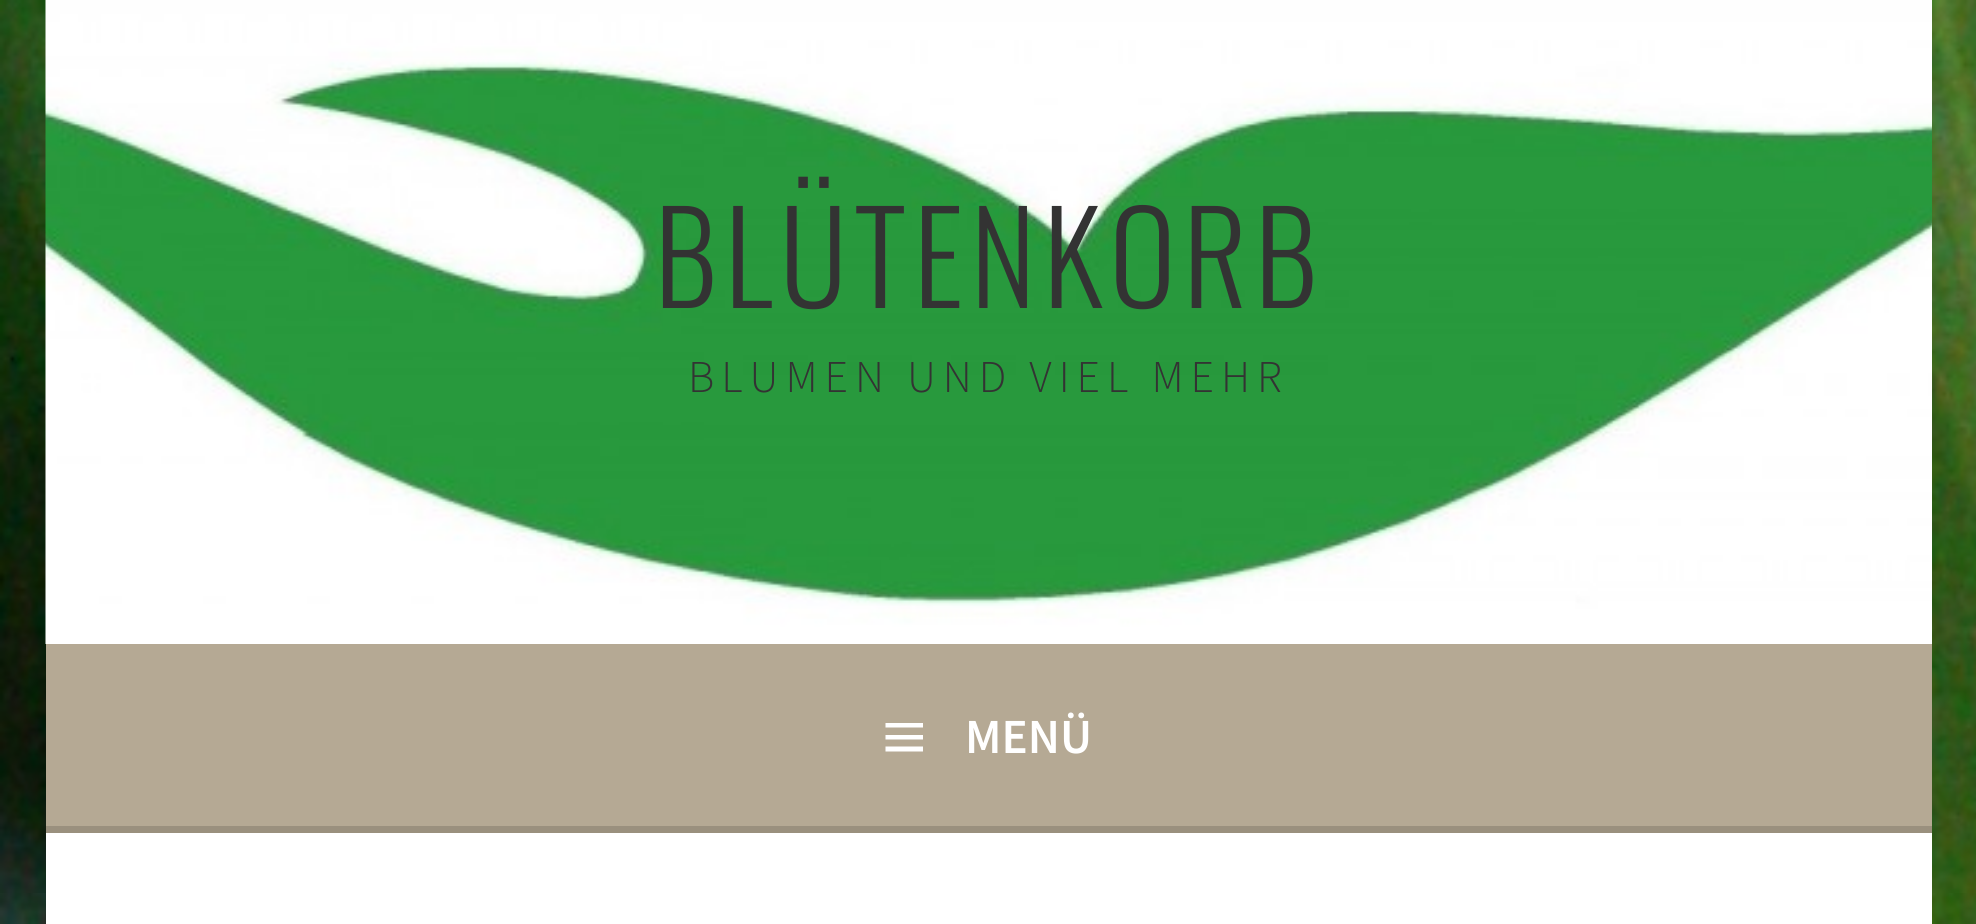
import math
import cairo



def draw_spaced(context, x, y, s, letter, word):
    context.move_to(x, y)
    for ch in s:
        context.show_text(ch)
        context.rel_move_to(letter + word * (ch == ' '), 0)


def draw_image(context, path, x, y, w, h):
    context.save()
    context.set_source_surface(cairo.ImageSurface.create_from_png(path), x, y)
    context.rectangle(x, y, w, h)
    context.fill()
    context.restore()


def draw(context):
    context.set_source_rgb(1, 1, 1)
    context.paint()
    draw_image(context, "images/1.png", 0, 0, 1976, 924)
    draw_image(context, "images/2.png", 45, 0, 1887, 644)
    context.set_source_rgb(181 / 255, 169 / 255, 148 / 255)
    context.rectangle(46, 644, 1886, 182)
    context.fill()
    context.set_source_rgb(154 / 255, 144 / 255, 126 / 255)
    context.rectangle(46, 826, 1886, 7)
    context.fill()
    context.set_source_rgb(1, 1, 1)
    context.new_path()
    context.move_to(885.5, 751.5)
    context.line_to(885.5, 746.5)
    context.line_to(923, 746.5)
    context.line_to(923, 751.5)
    context.close_path()
    context.move_to(885.5, 723)
    context.line_to(923, 723)
    context.line_to(923, 727.5)
    context.line_to(885.5, 727.5)
    context.close_path()
    context.move_to(885.5, 739.5)
    context.line_to(885.5, 735)
    context.line_to(923, 735)
    context.line_to(923, 739.5)
    context.close_path()
    context.fill()
    context.rectangle(46, 833, 1886, 91)
    context.fill()
    context.select_font_face("Oswald Light")
    context.set_font_size(126)
    context.set_source_rgb(51 / 255, 51 / 255, 51 / 255)
    draw_spaced(context, 654, 308, "BLÜTENKORB", 7, 0)
    context.select_font_face("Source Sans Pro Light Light")
    context.set_font_size(45.5)
    draw_spaced(context, 688, 392, "BLUMEN UND VIEL MEHR", 7, 0)
    context.select_font_face("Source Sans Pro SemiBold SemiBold")
    context.set_font_size(49)
    context.set_source_rgb(1, 1, 1)
    context.move_to(965, 753)
    context.show_text("MENÜ")


surface = cairo.ImageSurface(cairo.Format.RGB24, 1976, 924)
context = cairo.Context(surface)
options = cairo.FontOptions()
options.set_hint_metrics(cairo.HintMetrics.OFF)
options.set_hint_style(cairo.HintStyle.NONE)
context.set_font_options(options)
context.set_miter_limit(4)
draw(context)
surface.write_to_png("out.png")
